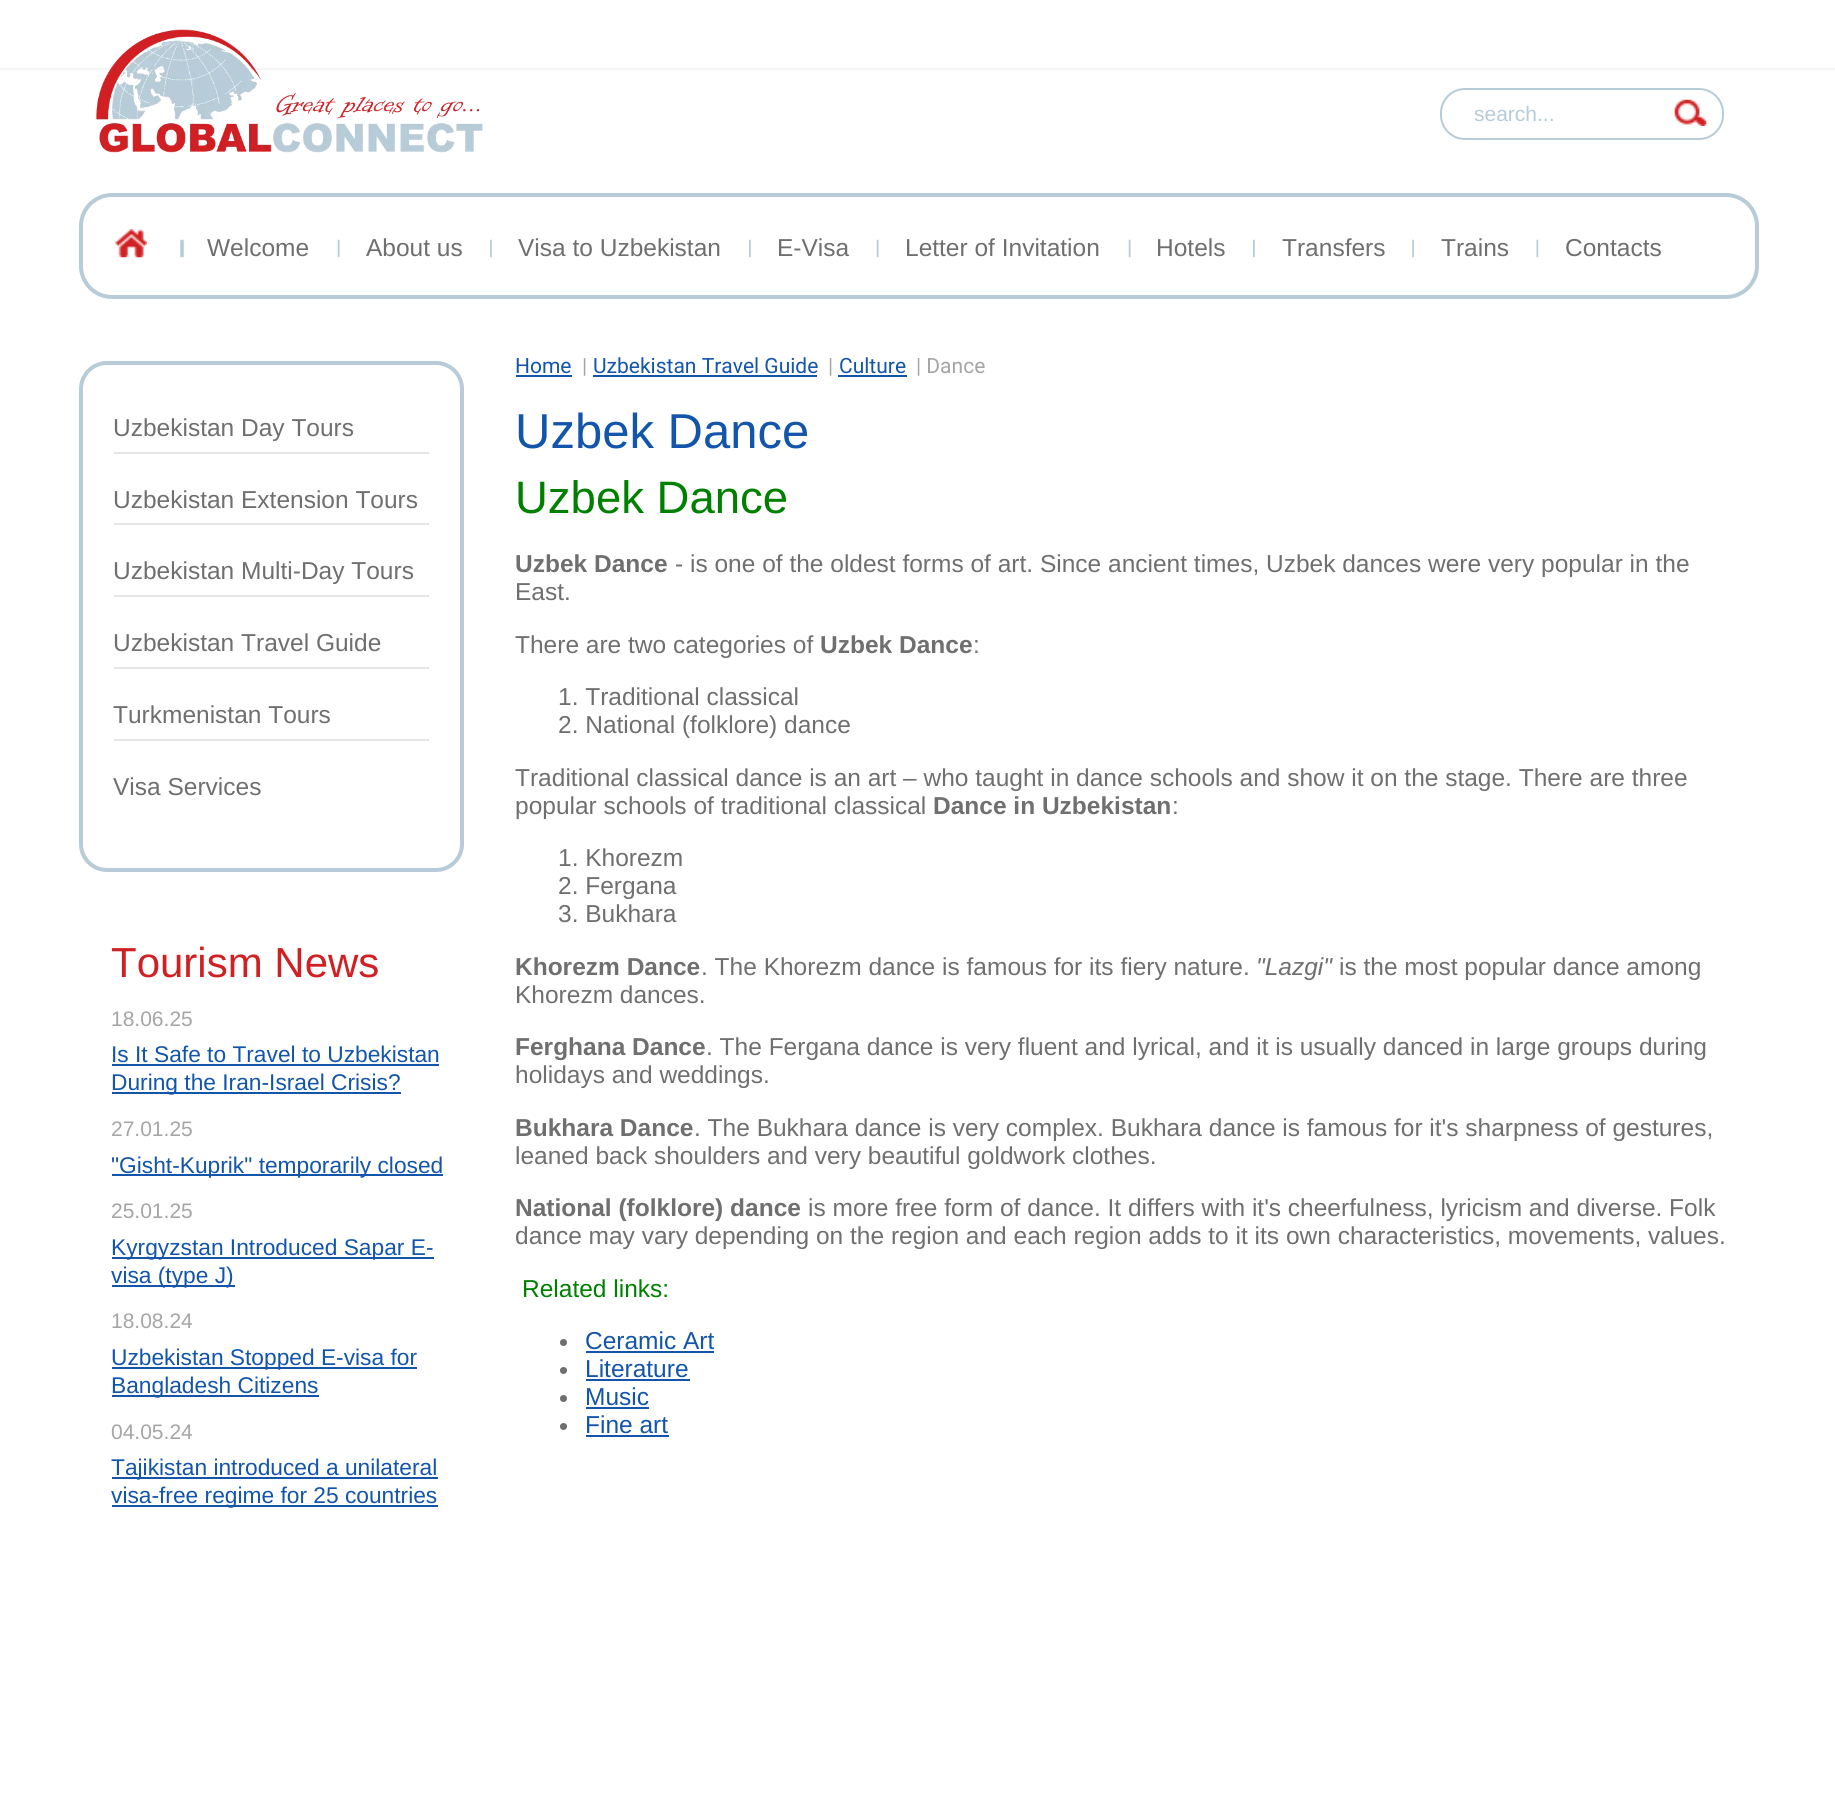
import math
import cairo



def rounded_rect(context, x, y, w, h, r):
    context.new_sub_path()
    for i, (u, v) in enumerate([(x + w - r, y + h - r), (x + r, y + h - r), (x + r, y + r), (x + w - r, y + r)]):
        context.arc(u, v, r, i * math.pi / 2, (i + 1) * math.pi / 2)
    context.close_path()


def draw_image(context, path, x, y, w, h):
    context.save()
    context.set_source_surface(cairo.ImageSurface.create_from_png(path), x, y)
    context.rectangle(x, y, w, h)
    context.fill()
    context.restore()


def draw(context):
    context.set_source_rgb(1, 1, 1)
    context.paint()
    context.set_source_rgb(245 / 255, 245 / 255, 245 / 255)
    context.rectangle(0, 68, 1835, 2)
    context.fill()
    draw_image(context, "images/1.png", 96, 29, 387, 124)
    rounded_rect(context, 1441, 89, 282, 50, 24)
    context.set_source_rgb(183 / 255, 203 / 255, 216 / 255)
    context.stroke()
    draw_image(context, "images/2.png", 1674, 99, 33, 27)
    rounded_rect(context, 81, 195, 1676, 102, 31)
    context.set_line_width(4)
    context.stroke()
    draw_image(context, "images/3.png", 115, 229, 32, 29)
    draw_image(context, "images/4.png", 180, 239, 4, 19)
    draw_image(context, "images/5.png", 337, 239, 3, 19)
    draw_image(context, "images/6.png", 490, 239, 2, 19)
    draw_image(context, "images/6.png", 749, 239, 2, 19)
    draw_image(context, "images/5.png", 876, 239, 3, 19)
    draw_image(context, "images/5.png", 1128, 239, 3, 19)
    draw_image(context, "images/6.png", 1253, 239, 2, 19)
    draw_image(context, "images/7.png", 1412, 239, 2, 19)
    draw_image(context, "images/8.png", 1536, 239, 3, 19)
    rounded_rect(context, 81, 363, 381, 507, 26)
    context.stroke()
    context.set_source_rgb(229 / 255, 229 / 255, 229 / 255)
    context.rectangle(114, 452, 315, 2)
    context.fill()
    context.rectangle(114, 523, 315, 2)
    context.fill()
    context.rectangle(114, 595, 315, 2)
    context.fill()
    context.rectangle(114, 667, 315, 2)
    context.fill()
    context.rectangle(114, 739, 315, 2)
    context.fill()
    context.set_source_rgb(18 / 255, 85 / 255, 171 / 255)
    context.rectangle(112, 1064, 327, 2)
    context.fill()
    context.rectangle(112, 1092, 289, 2)
    context.fill()
    context.rectangle(112, 1174, 331, 2)
    context.fill()
    context.rectangle(112, 1257, 322, 2)
    context.fill()
    context.rectangle(112, 1285, 123, 2)
    context.fill()
    context.rectangle(112, 1367, 305, 2)
    context.fill()
    context.rectangle(112, 1395, 207, 2)
    context.fill()
    context.rectangle(112, 1477, 326, 2)
    context.fill()
    context.rectangle(112, 1505, 326, 2)
    context.fill()
    context.rectangle(516, 375, 56, 2)
    context.fill()
    context.rectangle(593, 375, 224, 2)
    context.fill()
    context.rectangle(838, 375, 69, 2)
    context.fill()
    context.set_source_rgb(111 / 255, 111 / 255, 111 / 255)
    context.arc(563.5, 1342.5, 3.5, 0, 2 * math.pi)
    context.fill()
    context.set_source_rgb(18 / 255, 85 / 255, 171 / 255)
    context.rectangle(586, 1351, 128, 2)
    context.fill()
    context.set_source_rgb(111 / 255, 111 / 255, 111 / 255)
    context.arc(563.5, 1370.5, 3.5, 0, 2 * math.pi)
    context.fill()
    context.set_source_rgb(18 / 255, 85 / 255, 171 / 255)
    context.rectangle(586, 1379, 104, 2)
    context.fill()
    context.set_source_rgb(111 / 255, 111 / 255, 111 / 255)
    context.arc(563.5, 1398.5, 3.5, 0, 2 * math.pi)
    context.fill()
    context.set_source_rgb(18 / 255, 85 / 255, 171 / 255)
    context.rectangle(586, 1407, 63, 2)
    context.fill()
    context.set_source_rgb(111 / 255, 111 / 255, 111 / 255)
    context.arc(563.5, 1426.5, 3.5, 0, 2 * math.pi)
    context.fill()
    context.set_source_rgb(18 / 255, 85 / 255, 171 / 255)
    context.rectangle(586, 1435, 83, 2)
    context.fill()
    context.select_font_face("Liberation Sans")
    context.set_font_size(21)
    context.set_source_rgb(183 / 255, 203 / 255, 216 / 255)
    context.move_to(1474, 121)
    context.show_text("search...")
    context.set_font_size(24.5)
    context.set_source_rgb(111 / 255, 111 / 255, 111 / 255)
    context.move_to(207, 256)
    context.show_text("Welcome")
    context.move_to(366, 256)
    context.show_text("About us")
    context.move_to(518, 256)
    context.show_text("Visa to Uzbekistan")
    context.move_to(777, 256)
    context.show_text("E-Visa")
    context.move_to(905, 256)
    context.show_text("Letter of Invitation")
    context.move_to(1156, 256)
    context.show_text("Hotels")
    context.move_to(1282, 256)
    context.show_text("Transfers")
    context.move_to(1441, 256)
    context.show_text("Trains")
    context.move_to(1565, 256)
    context.show_text("Contacts")
    context.move_to(113, 436)
    context.show_text("Uzbekistan Day Tours")
    context.move_to(113, 508)
    context.show_text("Uzbekistan Extension Tours")
    context.move_to(113, 579)
    context.show_text("Uzbekistan Multi-Day Tours")
    context.move_to(113, 651)
    context.show_text("Uzbekistan Travel Guide")
    context.move_to(113, 723)
    context.show_text("Turkmenistan Tours")
    context.move_to(113, 795)
    context.show_text("Visa Services")
    context.set_font_size(42)
    context.set_source_rgb(209 / 255, 32 / 255, 35 / 255)
    context.move_to(111, 977)
    context.show_text("Tourism News")
    context.set_font_size(21)
    context.set_source_rgb(165 / 255, 165 / 255, 165 / 255)
    context.move_to(111, 1026)
    context.show_text("18.06.25")
    context.set_font_size(22.75)
    context.set_source_rgb(18 / 255, 85 / 255, 171 / 255)
    context.move_to(111, 1062)
    context.show_text("Is It Safe to Travel to Uzbekistan")
    context.move_to(111, 1090)
    context.show_text("During the Iran-Israel Crisis?")
    context.set_font_size(21)
    context.set_source_rgb(165 / 255, 165 / 255, 165 / 255)
    context.move_to(111, 1136)
    context.show_text("27.01.25")
    context.set_font_size(22.75)
    context.set_source_rgb(18 / 255, 85 / 255, 171 / 255)
    context.move_to(111, 1173)
    context.show_text("\"Gisht-Kuprik\" temporarily closed")
    context.set_font_size(21)
    context.set_source_rgb(165 / 255, 165 / 255, 165 / 255)
    context.move_to(111, 1218)
    context.show_text("25.01.25")
    context.set_font_size(22.75)
    context.set_source_rgb(18 / 255, 85 / 255, 171 / 255)
    context.move_to(111, 1255)
    context.show_text("Kyrgyzstan Introduced Sapar E-")
    context.move_to(111, 1283)
    context.show_text("visa (type J)")
    context.set_font_size(21)
    context.set_source_rgb(165 / 255, 165 / 255, 165 / 255)
    context.move_to(111, 1328)
    context.show_text("18.08.24")
    context.set_font_size(22.75)
    context.set_source_rgb(18 / 255, 85 / 255, 171 / 255)
    context.move_to(111, 1365)
    context.show_text("Uzbekistan Stopped E-visa for")
    context.move_to(111, 1393)
    context.show_text("Bangladesh Citizens")
    context.set_font_size(21)
    context.set_source_rgb(165 / 255, 165 / 255, 165 / 255)
    context.move_to(111, 1439)
    context.show_text("04.05.24")
    context.set_font_size(22.75)
    context.set_source_rgb(18 / 255, 85 / 255, 171 / 255)
    context.move_to(111, 1475)
    context.show_text("Tajikistan introduced a unilateral")
    context.move_to(111, 1503)
    context.show_text("visa-free regime for 25 countries")
    context.select_font_face("Roboto")
    context.set_font_size(21)
    context.move_to(515, 373)
    context.show_text("Home")
    context.set_source_rgb(165 / 255, 165 / 255, 165 / 255)
    context.move_to(582, 373)
    context.show_text("|")
    context.set_source_rgb(18 / 255, 85 / 255, 171 / 255)
    context.move_to(593, 373)
    context.show_text("Uzbekistan Travel Guide")
    context.set_source_rgb(165 / 255, 165 / 255, 165 / 255)
    context.move_to(828, 373)
    context.show_text("|")
    context.set_source_rgb(18 / 255, 85 / 255, 171 / 255)
    context.move_to(839, 373)
    context.show_text("Culture")
    context.set_source_rgb(165 / 255, 165 / 255, 165 / 255)
    context.move_to(916, 373)
    context.show_text("| Dance")
    context.select_font_face("Liberation Sans")
    context.set_font_size(49)
    context.set_source_rgb(18 / 255, 85 / 255, 171 / 255)
    context.move_to(515, 448)
    context.show_text("Uzbek Dance")
    context.set_font_size(45.5)
    context.set_source_rgb(0, 128 / 255, 0)
    context.move_to(515, 513)
    context.show_text("Uzbek Dance")
    context.select_font_face("Liberation Sans", cairo.FontSlant.NORMAL, cairo.FontWeight.BOLD)
    context.set_font_size(24.5)
    context.set_source_rgb(111 / 255, 111 / 255, 111 / 255)
    context.move_to(515, 572)
    context.show_text("Uzbek Dance")
    context.select_font_face("Liberation Sans")
    context.move_to(675, 572)
    context.show_text("- is one of the oldest forms of art. Since ancient times, Uzbek dances were very popular in the")
    context.move_to(515, 600)
    context.show_text("East.")
    context.move_to(515, 653)
    context.show_text("There are two categories of")
    context.select_font_face("Liberation Sans", cairo.FontSlant.NORMAL, cairo.FontWeight.BOLD)
    context.move_to(820, 653)
    context.show_text("Uzbek Dance")
    context.select_font_face("Liberation Sans")
    context.move_to(973, 653)
    context.show_text(":")
    context.move_to(558, 705)
    context.show_text("1. Traditional classical")
    context.move_to(558, 733)
    context.show_text("2. National (folklore) dance")
    context.move_to(515, 786)
    context.show_text("Traditional classical dance is an art – who taught in dance schools and show it on the stage. There are three")
    context.move_to(515, 814)
    context.show_text("popular schools of traditional classical")
    context.select_font_face("Liberation Sans", cairo.FontSlant.NORMAL, cairo.FontWeight.BOLD)
    context.move_to(933, 814)
    context.show_text("Dance in Uzbekistan")
    context.select_font_face("Liberation Sans")
    context.move_to(1172, 814)
    context.show_text(":")
    context.move_to(558, 866)
    context.show_text("1. Khorezm")
    context.move_to(558, 894)
    context.show_text("2. Fergana")
    context.move_to(558, 922)
    context.show_text("3. Bukhara")
    context.select_font_face("Liberation Sans", cairo.FontSlant.NORMAL, cairo.FontWeight.BOLD)
    context.move_to(515, 975)
    context.show_text("Khorezm Dance")
    context.select_font_face("Liberation Sans")
    context.move_to(701, 975)
    context.show_text(". The Khorezm dance is famous for its fiery nature.")
    context.select_font_face("Liberation Sans", cairo.FontSlant.ITALIC)
    context.move_to(1256, 975)
    context.show_text("\"Lazgi\"")
    context.select_font_face("Liberation Sans")
    context.move_to(1339, 975)
    context.show_text("is the most popular dance among")
    context.move_to(515, 1003)
    context.show_text("Khorezm dances.")
    context.select_font_face("Liberation Sans", cairo.FontSlant.NORMAL, cairo.FontWeight.BOLD)
    context.move_to(515, 1055)
    context.show_text("Ferghana Dance")
    context.select_font_face("Liberation Sans")
    context.move_to(706, 1055)
    context.show_text(". The Fergana dance is very fluent and lyrical, and it is usually danced in large groups during")
    context.move_to(515, 1083)
    context.show_text("holidays and weddings.")
    context.select_font_face("Liberation Sans", cairo.FontSlant.NORMAL, cairo.FontWeight.BOLD)
    context.move_to(515, 1136)
    context.show_text("Bukhara Dance")
    context.select_font_face("Liberation Sans")
    context.move_to(694, 1136)
    context.show_text(". The Bukhara dance is very complex. Bukhara dance is famous for it's sharpness of gestures,")
    context.move_to(515, 1164)
    context.show_text("leaned back shoulders and very beautiful goldwork clothes.")
    context.select_font_face("Liberation Sans", cairo.FontSlant.NORMAL, cairo.FontWeight.BOLD)
    context.move_to(515, 1216)
    context.show_text("National (folklore) dance")
    context.select_font_face("Liberation Sans")
    context.move_to(808, 1216)
    context.show_text("is more free form of dance. It differs with it's cheerfulness, lyricism and diverse. Folk")
    context.move_to(515, 1244)
    context.show_text("dance may vary depending on the region and each region adds to it its own characteristics, movements, values.")
    context.set_source_rgb(0, 128 / 255, 0)
    context.move_to(522, 1297)
    context.show_text("Related links:")
    context.set_source_rgb(18 / 255, 85 / 255, 171 / 255)
    context.move_to(585, 1349)
    context.show_text("Ceramic Art")
    context.move_to(585, 1377)
    context.show_text("Literature")
    context.move_to(585, 1405)
    context.show_text("Music")
    context.move_to(585, 1433)
    context.show_text("Fine art")


surface = cairo.ImageSurface(cairo.Format.RGB24, 1835, 1805)
context = cairo.Context(surface)
options = cairo.FontOptions()
options.set_hint_metrics(cairo.HintMetrics.OFF)
options.set_hint_style(cairo.HintStyle.NONE)
context.set_font_options(options)
context.set_miter_limit(4)
draw(context)
surface.write_to_png("out.png")
